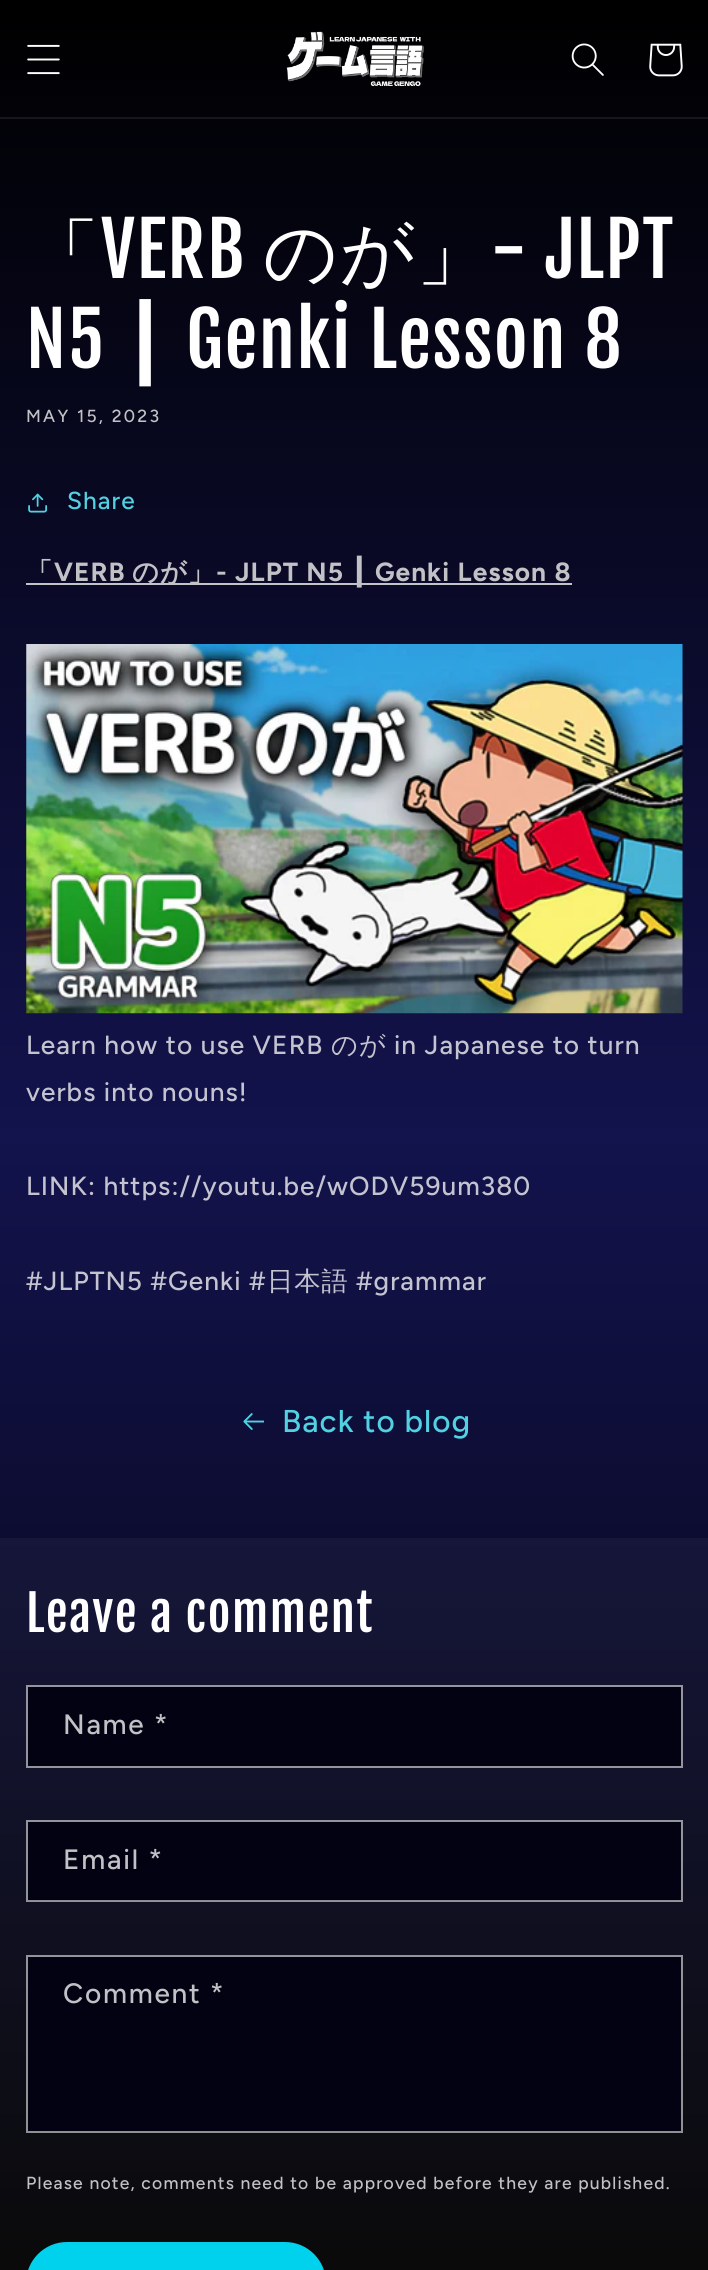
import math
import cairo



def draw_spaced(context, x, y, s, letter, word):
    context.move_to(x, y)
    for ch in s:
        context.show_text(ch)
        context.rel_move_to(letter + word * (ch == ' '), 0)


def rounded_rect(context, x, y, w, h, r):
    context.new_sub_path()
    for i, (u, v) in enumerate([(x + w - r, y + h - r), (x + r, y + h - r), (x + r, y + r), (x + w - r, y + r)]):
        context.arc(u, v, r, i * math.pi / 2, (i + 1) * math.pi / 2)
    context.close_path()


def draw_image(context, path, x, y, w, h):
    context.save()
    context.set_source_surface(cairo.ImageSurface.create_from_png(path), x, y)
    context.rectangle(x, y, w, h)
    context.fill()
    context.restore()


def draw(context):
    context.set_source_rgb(1, 1, 1)
    context.paint()
    gradient = cairo.LinearGradient(354, 0, 354, 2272)
    gradient.add_color_stop_rgba(0, 0, 0, 0, 1)
    gradient.add_color_stop_rgba(0.5, 19 / 255, 19 / 255, 77 / 255, 1)
    gradient.add_color_stop_rgba(1, 0, 0, 0, 1)
    context.set_source(gradient)
    context.rectangle(0, 0, 708, 1538)
    context.fill()
    gradient = cairo.LinearGradient(354, 0, 354, 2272)
    gradient.add_color_stop_rgba(0, 10 / 255, 10 / 255, 10 / 255, 1)
    gradient.add_color_stop_rgba(0.5, 28 / 255, 28 / 255, 84 / 255, 1)
    gradient.add_color_stop_rgba(1, 10 / 255, 10 / 255, 10 / 255, 1)
    context.set_source(gradient)
    context.rectangle(0, 1538, 708, 732)
    context.fill()
    context.set_source_rgb(22 / 255, 22 / 255, 28 / 255)
    context.rectangle(0, 117, 708, 2)
    context.fill()
    draw_image(context, "images/1.png", 27, 44, 33, 31)
    draw_image(context, "images/2.png", 286, 31, 138, 55)
    draw_image(context, "images/3.png", 571, 43, 33, 33)
    draw_image(context, "images/4.png", 649, 43, 34, 34)
    draw_image(context, "images/5.png", 28, 493, 20, 20)
    context.set_source_rgb(194 / 255, 194 / 255, 201 / 255)
    context.rectangle(26, 583, 546, 2)
    context.fill()
    draw_image(context, "images/6.png", 26, 644, 657, 370)
    draw_image(context, "images/7.png", 243, 1413, 21, 17)
    context.set_source_rgb(2 / 255, 2 / 255, 18 / 255)
    context.rectangle(28, 1687, 653, 79)
    context.fill()
    context.rectangle(27, 1686, 655, 81)
    context.set_source_rgba(1, 1, 1, 0.55)
    context.stroke()
    context.set_source_rgb(2 / 255, 2 / 255, 18 / 255)
    context.rectangle(28, 1822, 653, 79)
    context.fill()
    context.rectangle(27, 1821, 655, 80)
    context.set_source_rgba(1, 1, 1, 0.55)
    context.stroke()
    context.set_source_rgb(2 / 255, 2 / 255, 18 / 255)
    context.rectangle(28, 1957, 653, 175)
    context.fill()
    context.rectangle(27, 1956, 655, 176)
    context.set_source_rgba(1, 1, 1, 0.55)
    context.stroke()
    context.set_source_rgb(0, 209 / 255, 236 / 255)
    rounded_rect(context, 26, 2242, 300, 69, 41)
    context.fill()
    context.select_font_face("WenQuanYi Zen Hei Medium")
    context.set_font_size(73.5)
    context.set_source_rgb(1, 1, 1)
    draw_spaced(context, 26, 278, "「", 1.5, 0)
    context.select_font_face("Fjalla One")
    draw_spaced(context, 101, 278, "VERB", 1.5, 0)
    context.select_font_face("WenQuanYi Zen Hei Medium")
    draw_spaced(context, 263, 278, "のが」", 1.5, 0)
    context.select_font_face("Fjalla One")
    draw_spaced(context, 491, 278, "- JLPT", 1.5, 0)
    draw_spaced(context, 26, 368, "N5", 1.5, 0)
    context.select_font_face("DejaVu Sans")
    draw_spaced(context, 123, 368, "┃", 1.5, 0)
    context.select_font_face("Fjalla One")
    draw_spaced(context, 186, 368, "Genki Lesson 8", 1.5, 0)
    context.select_font_face("Figtree Medium")
    context.set_font_size(17.5)
    context.set_source_rgb(193 / 255, 193 / 255, 198 / 255)
    draw_spaced(context, 26, 422, "MAY 15, 2023", 2.25, 0)
    context.set_font_size(24.5)
    context.set_source_rgb(81 / 255, 209 / 255, 225 / 255)
    draw_spaced(context, 67, 509, "Share", 1.05, 0)
    context.select_font_face("WenQuanYi Zen Hei", cairo.FontSlant.NORMAL, cairo.FontWeight.BOLD)
    context.set_font_size(26.25)
    context.set_source_rgb(193 / 255, 193 / 255, 198 / 255)
    draw_spaced(context, 26, 581, "「", 1.05, 0)
    context.select_font_face("Figtree", cairo.FontSlant.NORMAL, cairo.FontWeight.BOLD)
    draw_spaced(context, 54, 581, "VERB", 1.05, 0)
    context.select_font_face("WenQuanYi Zen Hei", cairo.FontSlant.NORMAL, cairo.FontWeight.BOLD)
    draw_spaced(context, 132, 581, "のが」", 1.05, 0)
    context.select_font_face("Figtree", cairo.FontSlant.NORMAL, cairo.FontWeight.BOLD)
    draw_spaced(context, 216, 581, "- JLPT N5", 1.05, 0)
    context.select_font_face("DejaVu Sans", cairo.FontSlant.NORMAL, cairo.FontWeight.BOLD)
    draw_spaced(context, 351, 581, "┃", 1.05, 0)
    context.select_font_face("Figtree", cairo.FontSlant.NORMAL, cairo.FontWeight.BOLD)
    draw_spaced(context, 375, 581, "Genki Lesson 8", 1.05, 0)
    context.select_font_face("Figtree Medium")
    context.set_source_rgb(196 / 255, 196 / 255, 209 / 255)
    draw_spaced(context, 26, 1054, "Learn how to use VERB", 1.05, 0)
    context.select_font_face("WenQuanYi Zen Hei Medium")
    draw_spaced(context, 331, 1054, "のが", 1.05, 0)
    context.select_font_face("Figtree Medium")
    draw_spaced(context, 394, 1054, "in Japanese to turn", 1.05, 0)
    draw_spaced(context, 26, 1101, "verbs into nouns!", 1.05, 0)
    draw_spaced(context, 26, 1195, "LINK: https://youtu.be/wODV59um380", 1.05, 0)
    draw_spaced(context, 26, 1290, "#JLPTN5 #Genki #", 1.05, 0)
    context.select_font_face("WenQuanYi Zen Hei Medium")
    draw_spaced(context, 267, 1290, "日本語", 1.05, 0)
    context.select_font_face("Figtree Medium")
    draw_spaced(context, 356, 1290, "#grammar", 1.05, 0)
    context.set_font_size(31.5)
    context.set_source_rgb(81 / 255, 209 / 255, 225 / 255)
    draw_spaced(context, 282, 1432, "Back to blog", 1.05, 0)
    context.select_font_face("Fjalla One")
    context.set_font_size(49)
    context.set_source_rgb(1, 1, 1)
    draw_spaced(context, 26, 1632, "Leave a comment", 1.5, 0)
    context.select_font_face("Figtree Medium")
    context.set_font_size(28)
    context.set_source_rgb(193 / 255, 193 / 255, 198 / 255)
    draw_spaced(context, 63, 1734, "Name *", 1.75, 0)
    draw_spaced(context, 63, 1869, "Email *", 1.75, 0)
    draw_spaced(context, 63, 2003, "Comment *", 1.75, 0)
    context.set_font_size(17.5)
    draw_spaced(context, 26, 2189, "Please note, comments need to be approved before they are published.", 1.22, 0)


surface = cairo.ImageSurface(cairo.Format.RGB24, 708, 2270)
context = cairo.Context(surface)
options = cairo.FontOptions()
options.set_hint_metrics(cairo.HintMetrics.OFF)
options.set_hint_style(cairo.HintStyle.NONE)
context.set_font_options(options)
context.set_miter_limit(4)
draw(context)
surface.write_to_png("out.png")
